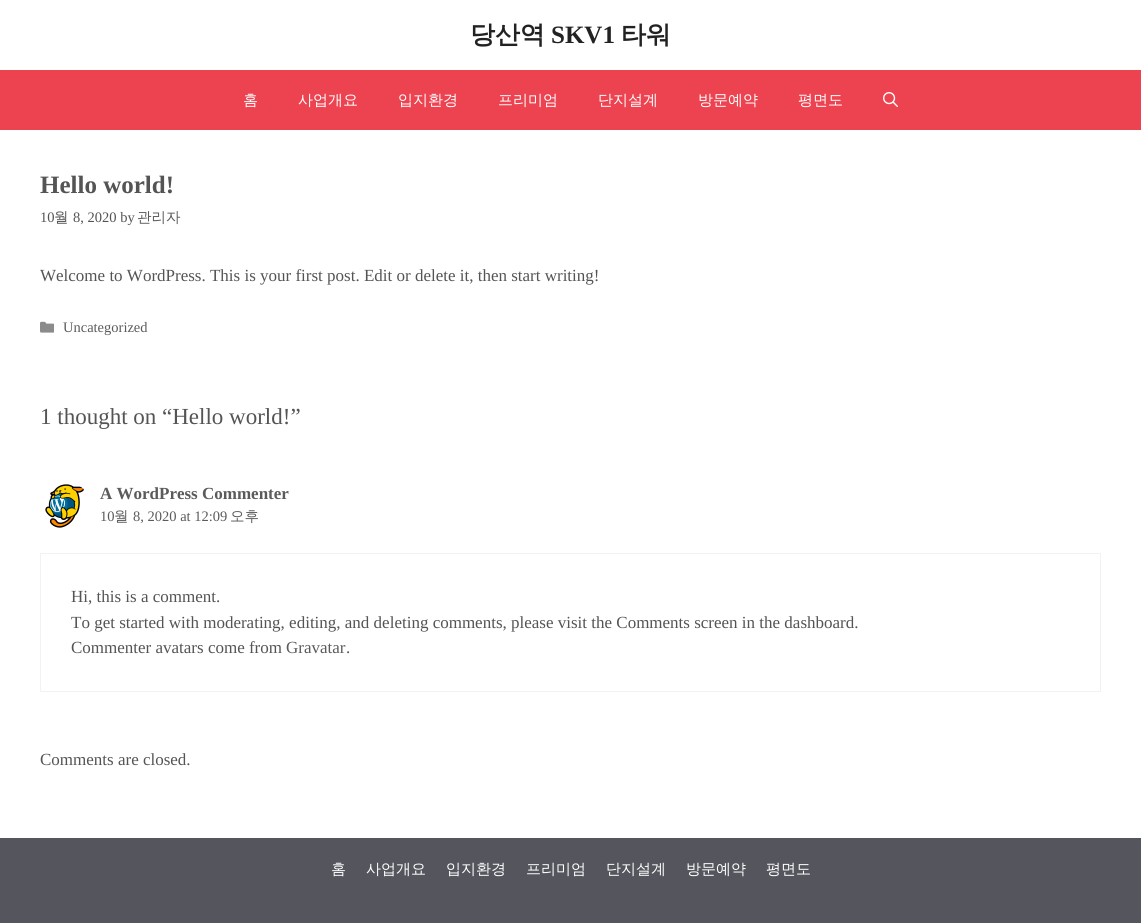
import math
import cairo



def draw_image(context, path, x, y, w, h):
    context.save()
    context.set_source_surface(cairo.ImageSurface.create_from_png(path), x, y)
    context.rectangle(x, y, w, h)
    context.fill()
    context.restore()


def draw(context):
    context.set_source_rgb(1, 1, 1)
    context.paint()
    context.set_source_rgb(237 / 255, 66 / 255, 80 / 255)
    context.rectangle(0, 70, 1141, 60)
    context.fill()
    draw_image(context, "images/1.png", 883, 92, 15, 15)
    draw_image(context, "images/2.png", 40, 321, 14, 12)
    draw_image(context, "images/3.png", 45, 484, 39, 44)
    context.rectangle(40.5, 553.5, 1060, 138)
    context.set_source_rgb(242 / 255, 242 / 255, 242 / 255)
    context.set_line_width(1)
    context.stroke()
    context.set_source_rgb(85 / 255, 85 / 255, 94 / 255)
    context.rectangle(0, 838, 1141, 85)
    context.fill()
    context.select_font_face("WenQuanYi Zen Hei", cairo.FontSlant.NORMAL, cairo.FontWeight.BOLD)
    context.set_font_size(25)
    context.set_source_rgb(34 / 255, 34 / 255, 34 / 255)
    context.move_to(470, 43)
    context.show_text("당산역")
    context.select_font_face("Liberation Serif", cairo.FontSlant.NORMAL, cairo.FontWeight.BOLD)
    context.move_to(551, 43)
    context.show_text("SKV1")
    context.select_font_face("WenQuanYi Zen Hei", cairo.FontSlant.NORMAL, cairo.FontWeight.BOLD)
    context.move_to(621, 43)
    context.show_text("타워")
    context.select_font_face("WenQuanYi Zen Hei Medium")
    context.set_font_size(15)
    context.set_source_rgb(1, 1, 1)
    context.move_to(243, 105)
    context.show_text("홈")
    context.move_to(298, 105)
    context.show_text("사업개요")
    context.move_to(398, 105)
    context.show_text("입지환경")
    context.move_to(498, 105)
    context.show_text("프리미엄")
    context.move_to(598, 105)
    context.show_text("단지설계")
    context.move_to(698, 105)
    context.show_text("방문예약")
    context.move_to(798, 105)
    context.show_text("평면도")
    context.select_font_face("Liberation Serif", cairo.FontSlant.NORMAL, cairo.FontWeight.BOLD)
    context.set_font_size(25)
    context.set_source_rgb(84 / 255, 84 / 255, 84 / 255)
    context.move_to(40, 193)
    context.show_text("Hello world!")
    context.select_font_face("Liberation Serif")
    context.set_font_size(14.5)
    context.move_to(40, 222)
    context.show_text("10")
    context.select_font_face("WenQuanYi Zen Hei Medium")
    context.move_to(54, 222)
    context.show_text("월")
    context.select_font_face("Liberation Serif")
    context.move_to(73, 222)
    context.show_text("8, 2020 by")
    context.select_font_face("WenQuanYi Zen Hei Medium")
    context.set_source_rgb(91 / 255, 91 / 255, 91 / 255)
    context.move_to(137, 222)
    context.show_text("관리자")
    context.select_font_face("Liberation Serif")
    context.set_font_size(17)
    context.set_source_rgb(84 / 255, 84 / 255, 84 / 255)
    context.move_to(40, 281)
    context.show_text("Welcome to WordPress. This is your first post. Edit or delete it, then start writing!")
    context.set_font_size(14.5)
    context.set_source_rgb(91 / 255, 91 / 255, 91 / 255)
    context.move_to(63, 332)
    context.show_text("Uncategorized")
    context.set_font_size(23)
    context.set_source_rgb(84 / 255, 84 / 255, 84 / 255)
    context.move_to(40, 424)
    context.show_text("1 thought on “Hello world!”")
    context.select_font_face("Liberation Serif", cairo.FontSlant.NORMAL, cairo.FontWeight.BOLD)
    context.set_font_size(17)
    context.set_source_rgb(91 / 255, 91 / 255, 91 / 255)
    context.move_to(100, 499)
    context.show_text("A WordPress Commenter")
    context.select_font_face("Liberation Serif")
    context.set_font_size(14.5)
    context.move_to(100, 521)
    context.show_text("10")
    context.select_font_face("WenQuanYi Zen Hei Medium")
    context.move_to(114, 521)
    context.show_text("월")
    context.select_font_face("Liberation Serif")
    context.move_to(133, 521)
    context.show_text("8, 2020 at 12:09")
    context.select_font_face("WenQuanYi Zen Hei Medium")
    context.move_to(230, 521)
    context.show_text("오후")
    context.select_font_face("Liberation Serif")
    context.set_font_size(17)
    context.set_source_rgb(84 / 255, 84 / 255, 84 / 255)
    context.move_to(71, 602)
    context.show_text("Hi, this is a comment.")
    context.move_to(71, 628)
    context.show_text("To get started with moderating, editing, and deleting comments, please visit the Comments screen in the dashboard.")
    context.move_to(71, 653)
    context.show_text("Commenter avatars come from")
    context.set_source_rgb(91 / 255, 91 / 255, 91 / 255)
    context.move_to(286, 653)
    context.show_text("Gravatar")
    context.set_source_rgb(84 / 255, 84 / 255, 84 / 255)
    context.move_to(346, 653)
    context.show_text(".")
    context.move_to(40, 765)
    context.show_text("Comments are closed.")
    context.select_font_face("WenQuanYi Zen Hei Medium")
    context.set_font_size(15)
    context.set_source_rgb(1, 1, 1)
    context.move_to(331, 874)
    context.show_text("홈")
    context.move_to(366, 874)
    context.show_text("사업개요")
    context.move_to(446, 874)
    context.show_text("입지환경")
    context.move_to(526, 874)
    context.show_text("프리미엄")
    context.move_to(606, 874)
    context.show_text("단지설계")
    context.move_to(686, 874)
    context.show_text("방문예약")
    context.move_to(766, 874)
    context.show_text("평면도")


surface = cairo.ImageSurface(cairo.Format.RGB24, 1141, 923)
context = cairo.Context(surface)
options = cairo.FontOptions()
options.set_hint_metrics(cairo.HintMetrics.OFF)
options.set_hint_style(cairo.HintStyle.NONE)
context.set_font_options(options)
context.set_miter_limit(4)
draw(context)
surface.write_to_png("out.png")
